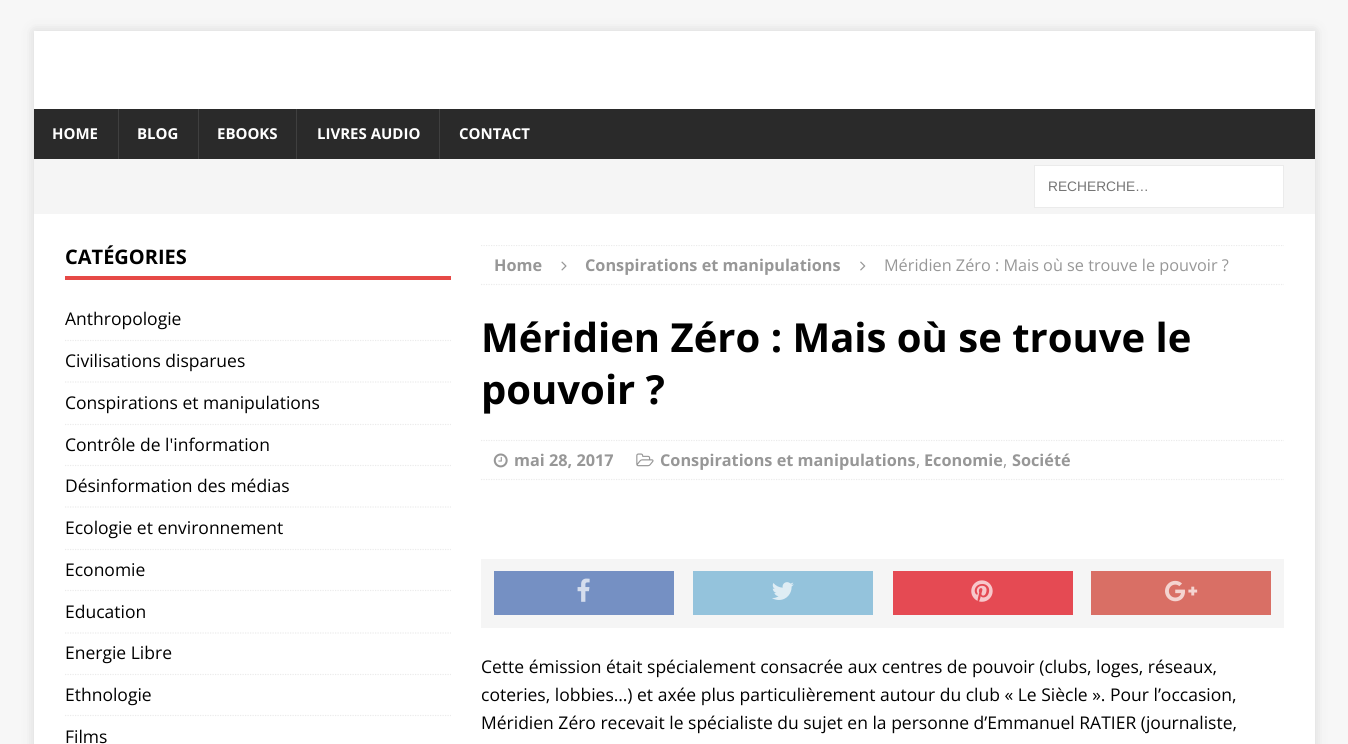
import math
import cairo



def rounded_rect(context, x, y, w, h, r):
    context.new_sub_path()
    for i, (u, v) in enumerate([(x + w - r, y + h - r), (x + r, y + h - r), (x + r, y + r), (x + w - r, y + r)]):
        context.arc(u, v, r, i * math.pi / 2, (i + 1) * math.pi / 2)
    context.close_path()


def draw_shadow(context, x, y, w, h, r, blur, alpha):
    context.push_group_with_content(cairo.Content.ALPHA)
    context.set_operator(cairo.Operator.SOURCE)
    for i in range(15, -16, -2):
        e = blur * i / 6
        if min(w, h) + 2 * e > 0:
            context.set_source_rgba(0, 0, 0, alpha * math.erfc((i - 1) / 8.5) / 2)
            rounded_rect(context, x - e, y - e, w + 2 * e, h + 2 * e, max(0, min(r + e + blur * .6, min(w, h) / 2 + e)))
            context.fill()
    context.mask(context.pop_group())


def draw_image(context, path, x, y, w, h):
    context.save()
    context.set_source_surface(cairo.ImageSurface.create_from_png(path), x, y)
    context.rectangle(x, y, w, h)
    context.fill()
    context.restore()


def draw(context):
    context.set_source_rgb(247 / 255, 247 / 255, 247 / 255)
    context.paint()
    context.set_source_rgb(50 / 255, 50 / 255, 50 / 255)
    draw_shadow(context, 34, 31, 1281, 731, 0, 6, 0.17)
    context.set_source_rgb(1, 1, 1)
    context.rectangle(34, 31, 1281, 78)
    context.fill()
    context.set_source_rgb(42 / 255, 42 / 255, 42 / 255)
    context.rectangle(34, 109, 1281, 50)
    context.fill()
    context.set_source_rgb(63 / 255, 63 / 255, 63 / 255)
    context.rectangle(118, 109, 1, 50)
    context.fill()
    context.rectangle(198, 109, 1, 50)
    context.fill()
    context.rectangle(296, 109, 1, 50)
    context.fill()
    context.rectangle(439, 109, 1, 50)
    context.fill()
    context.set_source_rgb(245 / 255, 245 / 255, 245 / 255)
    context.rectangle(34, 159, 1281, 55)
    context.fill()
    context.set_source_rgb(1, 1, 1)
    context.rectangle(1034.5, 165.5, 249, 42)
    context.fill_preserve()
    context.set_source_rgb(235 / 255, 235 / 255, 235 / 255)
    context.set_line_width(1)
    context.stroke()
    context.set_source_rgb(1, 1, 1)
    context.rectangle(34, 214, 1281, 530)
    context.fill()
    context.set_source_rgb(230 / 255, 73 / 255, 70 / 255)
    context.rectangle(65, 276, 386, 4)
    context.fill()
    context.new_path()
    context.move_to(65, 340.5)
    context.line_to(451, 340.5)
    context.set_source_rgb(235 / 255, 235 / 255, 235 / 255)
    context.set_line_width(1.2)
    context.set_dash([1.25, 1.25])
    context.stroke()
    context.new_path()
    context.move_to(65, 382)
    context.line_to(451, 382)
    context.stroke()
    context.new_path()
    context.move_to(65, 424.5)
    context.line_to(451, 424.5)
    context.stroke()
    context.new_path()
    context.move_to(65, 465.5)
    context.line_to(451, 465.5)
    context.stroke()
    context.new_path()
    context.move_to(65, 507)
    context.line_to(451, 507)
    context.stroke()
    context.new_path()
    context.move_to(65, 549.5)
    context.line_to(451, 549.5)
    context.stroke()
    context.new_path()
    context.move_to(65, 590.5)
    context.line_to(451, 590.5)
    context.stroke()
    context.new_path()
    context.move_to(65, 633)
    context.line_to(451, 633)
    context.stroke()
    context.new_path()
    context.move_to(65, 674.5)
    context.line_to(451, 674.5)
    context.stroke()
    context.new_path()
    context.move_to(65, 715.5)
    context.line_to(451, 715.5)
    context.stroke()
    context.save()
    context.rectangle(481, 245, 803, 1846)
    context.clip()
    context.new_path()
    context.move_to(481, 245.5)
    context.line_to(1284, 245.5)
    context.stroke()
    context.restore()
    context.new_path()
    context.move_to(481, 284.5)
    context.line_to(1284, 284.5)
    context.stroke()
    draw_image(context, "images/1.png", 561, 261, 6, 10)
    draw_image(context, "images/2.png", 860, 261, 6, 10)
    context.new_path()
    context.move_to(481, 440.5)
    context.line_to(1284, 440.5)
    context.stroke()
    context.new_path()
    context.move_to(481, 479.5)
    context.line_to(1284, 479.5)
    context.stroke()
    draw_image(context, "images/3.png", 493, 453, 15, 15)
    draw_image(context, "images/4.png", 636, 453, 18, 14)
    context.set_source_rgb(245 / 255, 245 / 255, 245 / 255)
    context.rectangle(481, 559, 803, 69)
    context.fill()
    context.set_source_rgb(117 / 255, 144 / 255, 195 / 255)
    context.rectangle(494, 571, 180, 44)
    context.fill()
    draw_image(context, "images/5.png", 577, 578, 13, 24)
    context.set_source_rgb(148 / 255, 195 / 255, 220 / 255)
    context.rectangle(693, 571, 180, 44)
    context.fill()
    draw_image(context, "images/6.png", 772, 582, 22, 18)
    context.set_source_rgb(229 / 255, 74 / 255, 83 / 255)
    context.rectangle(893, 571, 180, 44)
    context.fill()
    draw_image(context, "images/7.png", 971, 580, 22, 22)
    context.set_source_rgb(217 / 255, 111 / 255, 101 / 255)
    context.rectangle(1091, 571, 180, 44)
    context.fill()
    draw_image(context, "images/8.png", 1165, 580, 33, 22)
    context.select_font_face("Open Sans", cairo.FontSlant.NORMAL, cairo.FontWeight.BOLD)
    context.set_font_size(15)
    context.set_source_rgb(1, 1, 1)
    context.move_to(52, 139)
    context.show_text("HOME")
    context.move_to(137, 139)
    context.show_text("BLOG")
    context.move_to(217, 139)
    context.show_text("EBOOKS")
    context.move_to(317, 139)
    context.show_text("LIVRES AUDIO")
    context.move_to(459, 139)
    context.show_text("CONTACT")
    context.select_font_face("Liberation Sans")
    context.set_font_size(13.75)
    context.set_source_rgb(117 / 255, 117 / 255, 117 / 255)
    context.move_to(1048, 191)
    context.show_text("RECHERCHE…")
    context.select_font_face("Open Sans", cairo.FontSlant.NORMAL, cairo.FontWeight.BOLD)
    context.set_font_size(20)
    context.set_source_rgb(0, 0, 0)
    context.move_to(65, 264)
    context.show_text("CATÉGORIES")
    context.select_font_face("Open Sans")
    context.set_font_size(17.5)
    context.move_to(65, 325)
    context.show_text("Anthropologie")
    context.move_to(65, 367)
    context.show_text("Civilisations disparues")
    context.move_to(65, 409)
    context.show_text("Conspirations et manipulations")
    context.move_to(65, 451)
    context.show_text("Contrôle de l'information")
    context.move_to(65, 492)
    context.show_text("Désinformation des médias")
    context.move_to(65, 534)
    context.show_text("Ecologie et environnement")
    context.move_to(65, 576)
    context.show_text("Economie")
    context.move_to(65, 618)
    context.show_text("Education")
    context.move_to(65, 659)
    context.show_text("Energie Libre")
    context.move_to(65, 701)
    context.show_text("Ethnologie")
    context.move_to(65, 743)
    context.show_text("Films")
    context.select_font_face("Open Sans", cairo.FontSlant.NORMAL, cairo.FontWeight.BOLD)
    context.set_font_size(16.25)
    context.set_source_rgb(151 / 255, 151 / 255, 151 / 255)
    context.move_to(494, 271)
    context.show_text("Home")
    context.move_to(585, 271)
    context.show_text("Conspirations et manipulations")
    context.select_font_face("Open Sans")
    context.move_to(884, 271)
    context.show_text("Méridien Zéro : Mais où se trouve le pouvoir ?")
    context.select_font_face("Open Sans", cairo.FontSlant.NORMAL, cairo.FontWeight.BOLD)
    context.set_font_size(40)
    context.set_source_rgb(0, 0, 0)
    context.move_to(481, 352)
    context.show_text("Méridien Zéro : Mais où se trouve le")
    context.move_to(481, 404)
    context.show_text("pouvoir ?")
    context.set_font_size(16.25)
    context.set_source_rgb(151 / 255, 151 / 255, 151 / 255)
    context.move_to(514, 466)
    context.show_text("mai 28, 2017")
    context.move_to(660, 466)
    context.show_text("Conspirations et manipulations")
    context.select_font_face("Open Sans")
    context.move_to(916, 466)
    context.show_text(",")
    context.select_font_face("Open Sans", cairo.FontSlant.NORMAL, cairo.FontWeight.BOLD)
    context.move_to(924, 466)
    context.show_text("Economie")
    context.select_font_face("Open Sans")
    context.move_to(1003, 466)
    context.show_text(",")
    context.select_font_face("Open Sans", cairo.FontSlant.NORMAL, cairo.FontWeight.BOLD)
    context.move_to(1012, 466)
    context.show_text("Société")
    context.select_font_face("Open Sans")
    context.set_font_size(17.5)
    context.set_source_rgb(0, 0, 0)
    context.move_to(481, 673)
    context.show_text("Cette émission était spécialement consacrée aux centres de pouvoir (clubs, loges, réseaux,")
    context.move_to(481, 701)
    context.show_text("coteries, lobbies…) et axée plus particulièrement autour du club « Le Siècle ». Pour l’occasion,")
    context.move_to(481, 729)
    context.show_text("Méridien Zéro recevait le spécialiste du sujet en la personne d’Emmanuel RATIER (journaliste,")


surface = cairo.ImageSurface(cairo.Format.RGB24, 1348, 744)
context = cairo.Context(surface)
options = cairo.FontOptions()
options.set_hint_metrics(cairo.HintMetrics.OFF)
options.set_hint_style(cairo.HintStyle.NONE)
context.set_font_options(options)
context.set_miter_limit(4)
draw(context)
surface.write_to_png("out.png")
